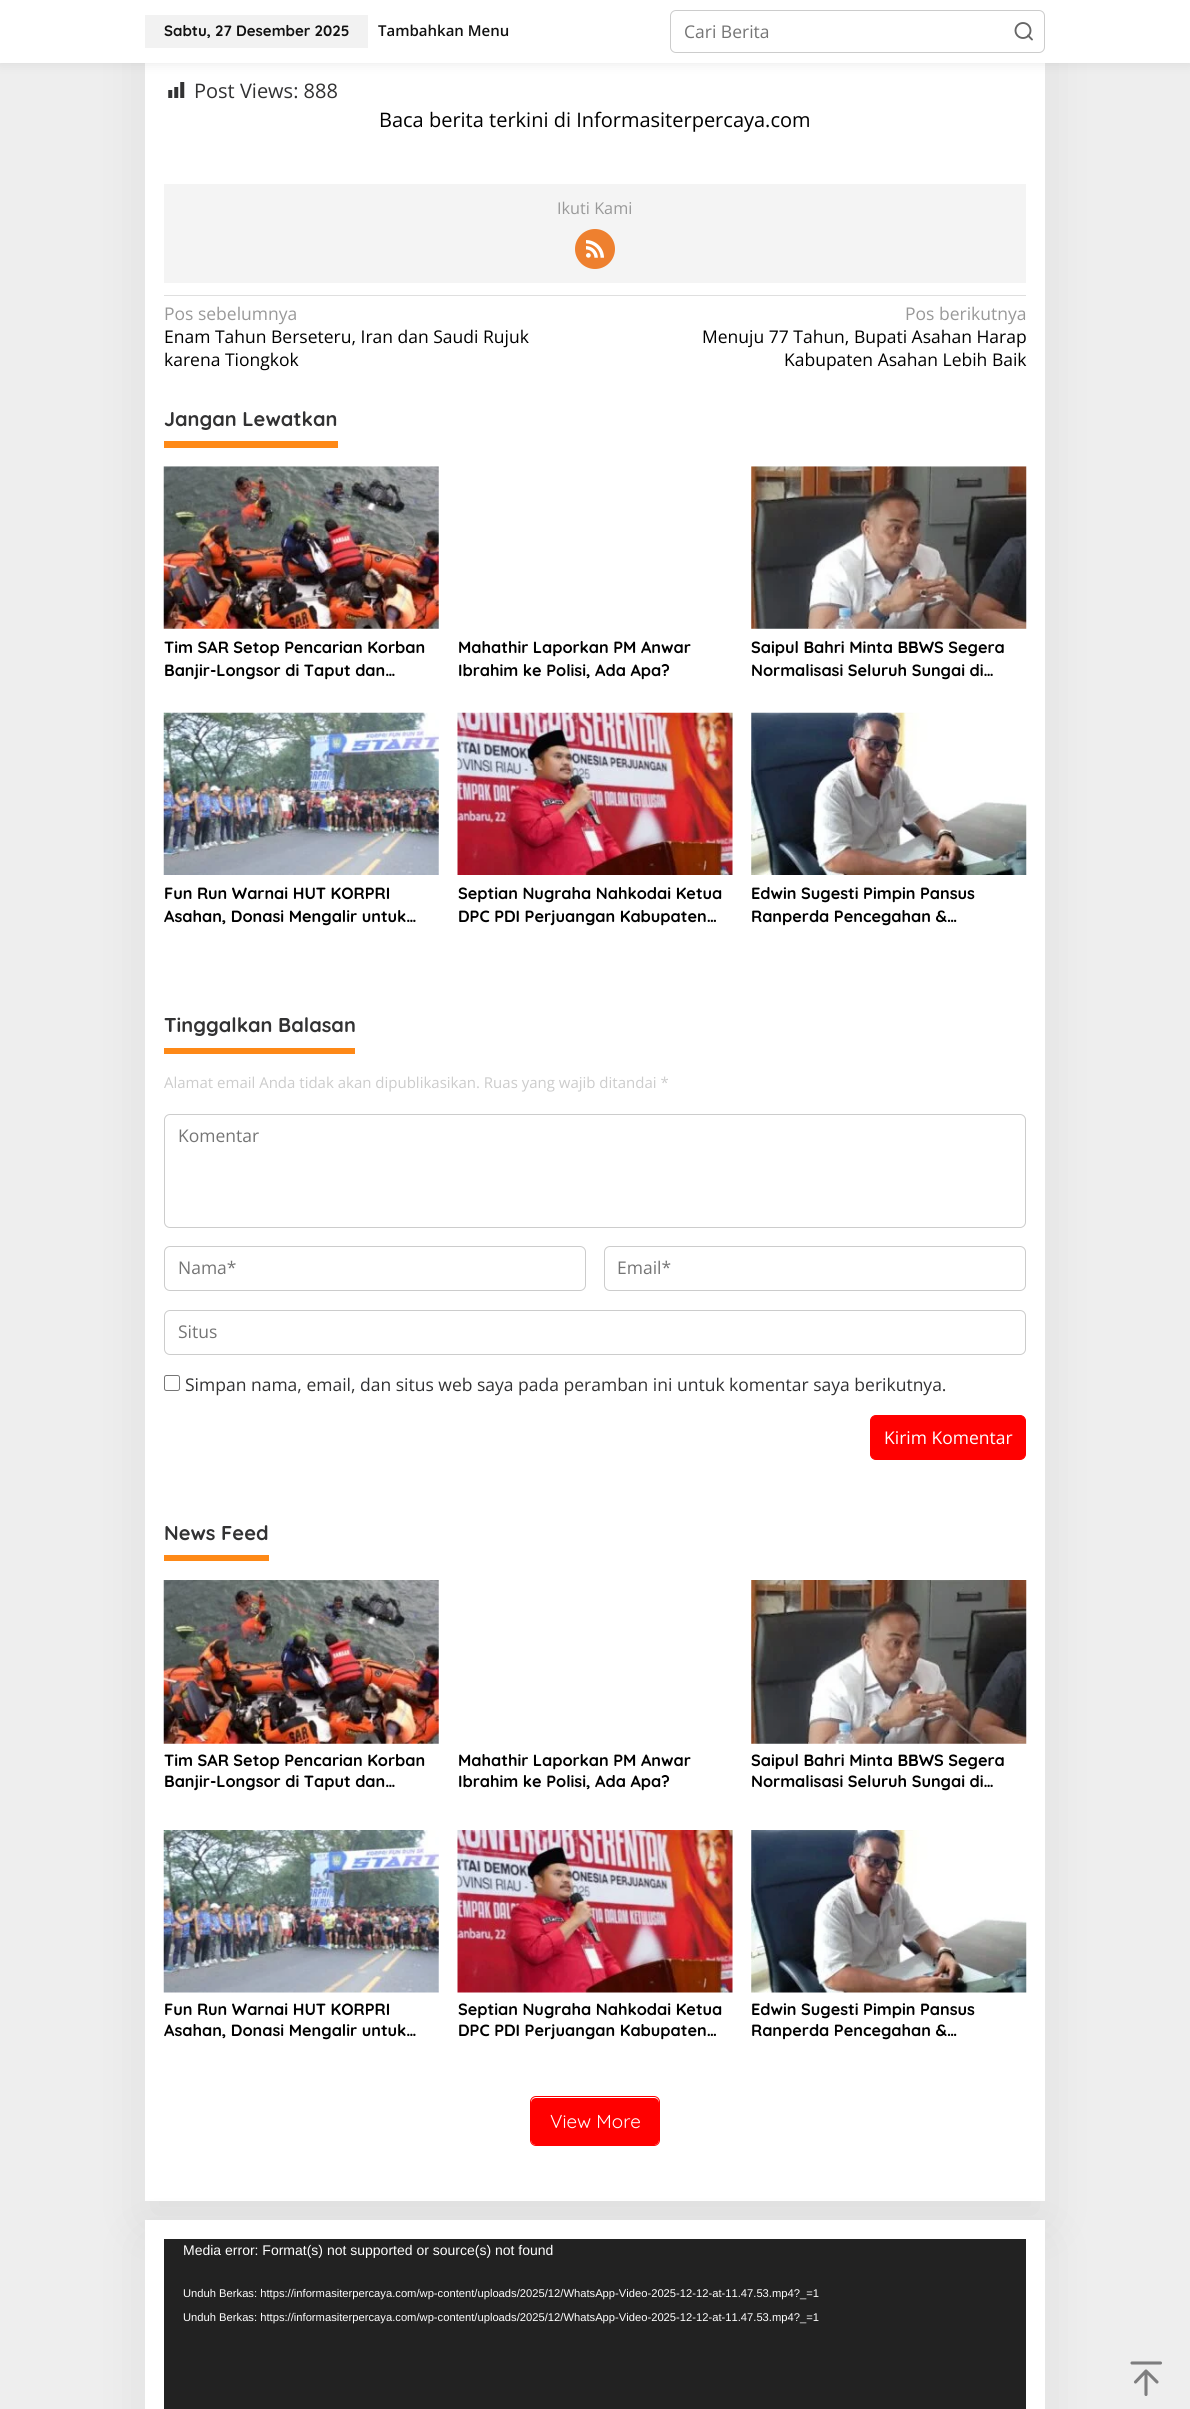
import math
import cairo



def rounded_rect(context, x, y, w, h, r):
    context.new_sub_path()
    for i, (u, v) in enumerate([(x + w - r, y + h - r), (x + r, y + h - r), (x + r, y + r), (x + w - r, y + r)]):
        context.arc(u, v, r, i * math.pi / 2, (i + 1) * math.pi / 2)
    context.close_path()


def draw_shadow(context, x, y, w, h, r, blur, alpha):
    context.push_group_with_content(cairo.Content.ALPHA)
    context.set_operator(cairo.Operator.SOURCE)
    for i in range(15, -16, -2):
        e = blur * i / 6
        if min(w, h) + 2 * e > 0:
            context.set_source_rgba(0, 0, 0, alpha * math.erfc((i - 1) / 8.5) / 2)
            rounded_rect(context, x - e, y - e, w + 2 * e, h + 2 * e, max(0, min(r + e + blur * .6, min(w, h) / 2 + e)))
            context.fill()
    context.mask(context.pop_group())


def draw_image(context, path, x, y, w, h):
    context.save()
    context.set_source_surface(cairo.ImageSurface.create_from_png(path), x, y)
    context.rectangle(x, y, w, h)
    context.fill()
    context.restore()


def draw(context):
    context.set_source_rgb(238 / 255, 238 / 255, 238 / 255)
    context.paint()
    context.set_source_rgb(0, 0, 0)
    draw_shadow(context, 145, -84, 900, 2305, 0, 28, 0.07)
    context.set_source_rgb(1, 1, 1)
    context.rectangle(145, 63, 900, 2138)
    context.fill()
    context.set_source_rgb(0, 0, 0)
    draw_shadow(context, 0, 0, 1190, 63, 0, 6, 0.1)
    context.set_source_rgb(1, 1, 1)
    context.rectangle(0, 0, 1190, 63)
    context.fill()
    context.set_source_rgb(242 / 255, 242 / 255, 242 / 255)
    context.rectangle(145, 15, 223, 33)
    context.fill()
    rounded_rect(context, 670.5, 10.5, 374, 42, 5.5)
    context.set_source_rgb(204 / 255, 204 / 255, 204 / 255)
    context.set_line_width(1)
    context.stroke()
    context.arc(1023, 30.5, 7.5, 0, 2 * math.pi)
    context.set_source_rgb(102 / 255, 102 / 255, 102 / 255)
    context.set_line_width(1.9)
    context.stroke()
    context.new_path()
    context.move_to(1032, 39.5)
    context.line_to(1028, 35.5)
    context.set_line_cap(cairo.LineCap.ROUND)
    context.set_line_join(cairo.LineJoin.ROUND)
    context.stroke()
    draw_image(context, "images/1.png", 168, 82, 17, 16)
    context.set_source_rgb(244 / 255, 244 / 255, 244 / 255)
    context.rectangle(164, 184, 862, 99)
    context.fill()
    context.set_source_rgb(238 / 255, 128 / 255, 47 / 255)
    context.arc(595, 249, 20, 0, 2 * math.pi)
    context.fill()
    draw_image(context, "images/2.png", 586, 240, 18, 18)
    context.set_source_rgb(223 / 255, 223 / 255, 223 / 255)
    context.rectangle(164, 295, 862, 1)
    context.fill()
    context.set_source_rgb(254 / 255, 137 / 255, 23 / 255)
    context.rectangle(164, 441, 174, 7)
    context.fill()
    draw_image(context, "images/3.png", 163, 466, 276, 163)
    draw_image(context, "images/4.png", 751, 466, 276, 163)
    draw_image(context, "images/5.png", 163, 712, 276, 163)
    draw_image(context, "images/6.png", 457, 712, 276, 163)
    draw_image(context, "images/7.png", 751, 712, 276, 163)
    context.rectangle(164, 1048, 191, 6)
    context.fill()
    rounded_rect(context, 164.5, 1114.5, 861, 113, 5.5)
    context.set_source_rgb(204 / 255, 204 / 255, 204 / 255)
    context.set_line_width(1)
    context.set_line_cap(cairo.LineCap.BUTT)
    context.set_line_join(cairo.LineJoin.MITER)
    context.stroke()
    rounded_rect(context, 164.5, 1246.5, 421, 44, 5.5)
    context.stroke()
    rounded_rect(context, 604.5, 1246.5, 421, 44, 5.5)
    context.stroke()
    rounded_rect(context, 164.5, 1310.5, 861, 44, 5.5)
    context.stroke()
    rounded_rect(context, 164.5, 1375.5, 15, 15, 2)
    context.set_source_rgb(118 / 255, 118 / 255, 118 / 255)
    context.stroke()
    context.set_source_rgb(1, 0, 0)
    rounded_rect(context, 870.5, 1415.5, 155, 44, 5.5)
    context.fill_preserve()
    context.stroke()
    context.set_source_rgb(254 / 255, 137 / 255, 23 / 255)
    context.rectangle(164, 1555, 105, 6)
    context.fill()
    draw_image(context, "images/8.png", 163, 1580, 276, 164)
    draw_image(context, "images/9.png", 751, 1580, 276, 164)
    draw_image(context, "images/10.png", 163, 1830, 276, 163)
    draw_image(context, "images/11.png", 457, 1830, 276, 163)
    draw_image(context, "images/12.png", 751, 1830, 276, 163)
    context.set_source_rgb(1, 0, 0)
    rounded_rect(context, 531, 2098, 128, 47, 5)
    context.fill()
    rounded_rect(context, 530.5, 2096.5, 129, 49, 5.5)
    context.stroke()
    context.set_source_rgb(0, 0, 0)
    draw_shadow(context, 145, 2240, 900, 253, 0, 28, 0.07)
    context.set_source_rgb(1, 1, 1)
    context.rectangle(145, 2220, 900, 189)
    context.fill()
    context.set_source_rgb(34 / 255, 34 / 255, 34 / 255)
    context.rectangle(164, 2239, 862, 170)
    context.fill()
    context.new_path()
    context.move_to(1146, 2394.5)
    context.line_to(1146, 2371)
    context.move_to(1135.5, 2382)
    context.line_to(1146, 2371)
    context.line_to(1157, 2382)
    context.move_to(1132, 2363)
    context.line_to(1160.5, 2363)
    context.set_source_rgb(125 / 255, 125 / 255, 126 / 255)
    context.set_line_width(3.1)
    context.set_line_cap(cairo.LineCap.ROUND)
    context.set_line_join(cairo.LineJoin.ROUND)
    context.stroke()
    context.select_font_face("Quicksand", cairo.FontSlant.NORMAL, cairo.FontWeight.BOLD)
    context.set_font_size(15)
    context.set_source_rgb(17 / 255, 17 / 255, 17 / 255)
    context.move_to(164, 36)
    context.show_text("Sabtu, 27 Desember 2025")
    context.select_font_face("Open Sans SemiBold")
    context.move_to(378, 36)
    context.show_text("Tambahkan Menu")
    context.select_font_face("Open Sans")
    context.set_font_size(17.5)
    context.set_source_rgb(117 / 255, 117 / 255, 117 / 255)
    context.move_to(684, 38)
    context.show_text("Cari Berita")
    context.set_font_size(20)
    context.set_source_rgb(50 / 255, 50 / 255, 51 / 255)
    context.move_to(194, 98)
    context.show_text("Post Views: 888")
    context.set_source_rgb(0, 0, 0)
    context.move_to(379, 127)
    context.show_text("Baca berita terkini di Informasiterpercaya.com")
    context.set_font_size(16.25)
    context.set_source_rgb(153 / 255, 153 / 255, 153 / 255)
    context.move_to(557, 214)
    context.show_text("Ikuti Kami")
    context.set_font_size(17.5)
    context.move_to(164, 320)
    context.show_text("Pos sebelumnya")
    context.set_source_rgb(0, 0, 0)
    context.move_to(164, 343)
    context.show_text("Enam Tahun Berseteru, Iran dan Saudi Rujuk")
    context.move_to(164, 366)
    context.show_text("karena Tiongkok")
    context.set_source_rgb(153 / 255, 153 / 255, 153 / 255)
    context.move_to(905, 320)
    context.show_text("Pos berikutnya")
    context.set_source_rgb(0, 0, 0)
    context.move_to(702, 343)
    context.show_text("Menuju 77 Tahun, Bupati Asahan Harap")
    context.move_to(784, 366)
    context.show_text("Kabupaten Asahan Lebih Baik")
    context.select_font_face("Quicksand", cairo.FontSlant.NORMAL, cairo.FontWeight.BOLD)
    context.set_font_size(20)
    context.set_source_rgb(50 / 255, 50 / 255, 51 / 255)
    context.move_to(164, 426)
    context.show_text("Jangan Lewatkan")
    context.set_font_size(16.25)
    context.set_source_rgb(0, 0, 0)
    context.move_to(164, 653)
    context.show_text("Tim SAR Setop Pencarian Korban")
    context.move_to(164, 676)
    context.show_text("Banjir-Longsor di Taput dan…")
    context.move_to(458, 653)
    context.show_text("Mahathir Laporkan PM Anwar")
    context.move_to(458, 676)
    context.show_text("Ibrahim ke Polisi, Ada Apa?")
    context.move_to(751, 653)
    context.show_text("Saipul Bahri Minta BBWS Segera")
    context.move_to(751, 676)
    context.show_text("Normalisasi Seluruh Sungai di…")
    context.move_to(164, 899)
    context.show_text("Fun Run Warnai HUT KORPRI")
    context.move_to(164, 922)
    context.show_text("Asahan, Donasi Mengalir untuk…")
    context.move_to(458, 899)
    context.show_text("Septian Nugraha Nahkodai Ketua")
    context.move_to(458, 922)
    context.show_text("DPC PDI Perjuangan Kabupaten…")
    context.move_to(751, 899)
    context.show_text("Edwin Sugesti Pimpin Pansus")
    context.move_to(751, 922)
    context.show_text("Ranperda Pencegahan &…")
    context.set_font_size(20)
    context.set_source_rgb(50 / 255, 50 / 255, 51 / 255)
    context.move_to(164, 1032)
    context.show_text("Tinggalkan Balasan")
    context.select_font_face("Open Sans")
    context.set_font_size(15)
    context.set_source_rgb(204 / 255, 204 / 255, 204 / 255)
    context.move_to(164, 1088)
    context.show_text("Alamat email Anda tidak akan dipublikasikan. Ruas yang wajib ditandai *")
    context.set_font_size(17.5)
    context.set_source_rgb(117 / 255, 117 / 255, 117 / 255)
    context.move_to(178, 1142)
    context.show_text("Komentar")
    context.move_to(178, 1274)
    context.show_text("Nama*")
    context.move_to(617, 1274)
    context.show_text("Email*")
    context.move_to(178, 1338)
    context.show_text("Situs")
    context.set_source_rgb(50 / 255, 50 / 255, 51 / 255)
    context.move_to(185, 1391)
    context.show_text("Simpan nama, email, dan situs web saya pada peramban ini untuk komentar saya berikutnya.")
    context.set_source_rgb(1, 1, 1)
    context.move_to(884, 1444)
    context.show_text("Kirim Komentar")
    context.select_font_face("Quicksand", cairo.FontSlant.NORMAL, cairo.FontWeight.BOLD)
    context.set_font_size(20)
    context.set_source_rgb(50 / 255, 50 / 255, 51 / 255)
    context.move_to(164, 1540)
    context.show_text("News Feed")
    context.set_font_size(16.25)
    context.set_source_rgb(0, 0, 0)
    context.move_to(164, 1766)
    context.show_text("Tim SAR Setop Pencarian Korban")
    context.move_to(164, 1787)
    context.show_text("Banjir-Longsor di Taput dan…")
    context.move_to(458, 1766)
    context.show_text("Mahathir Laporkan PM Anwar")
    context.move_to(458, 1787)
    context.show_text("Ibrahim ke Polisi, Ada Apa?")
    context.move_to(751, 1766)
    context.show_text("Saipul Bahri Minta BBWS Segera")
    context.move_to(751, 1787)
    context.show_text("Normalisasi Seluruh Sungai di…")
    context.move_to(164, 2015)
    context.show_text("Fun Run Warnai HUT KORPRI")
    context.move_to(164, 2036)
    context.show_text("Asahan, Donasi Mengalir untuk…")
    context.move_to(458, 2015)
    context.show_text("Septian Nugraha Nahkodai Ketua")
    context.move_to(458, 2036)
    context.show_text("DPC PDI Perjuangan Kabupaten…")
    context.move_to(751, 2015)
    context.show_text("Edwin Sugesti Pimpin Pansus")
    context.move_to(751, 2036)
    context.show_text("Ranperda Pencegahan &…")
    context.select_font_face("Quicksand")
    context.set_font_size(18.75)
    context.set_source_rgb(1, 1, 1)
    context.move_to(550, 2128)
    context.show_text("View More")
    context.select_font_face("Liberation Sans")
    context.set_font_size(14)
    context.move_to(183, 2255)
    context.show_text("Media error: Format(s) not supported or source(s) not found")
    context.set_font_size(11.2)
    context.move_to(183, 2297)
    context.show_text("Unduh Berkas: https://informasiterpercaya.com/wp-content/uploads/2025/12/WhatsApp-Video-2025-12-12-at-11.47.53.mp4?_=1")
    context.move_to(183, 2321)
    context.show_text("Unduh Berkas: https://informasiterpercaya.com/wp-content/uploads/2025/12/WhatsApp-Video-2025-12-12-at-11.47.53.mp4?_=1")


surface = cairo.ImageSurface(cairo.Format.RGB24, 1190, 2409)
context = cairo.Context(surface)
options = cairo.FontOptions()
options.set_hint_metrics(cairo.HintMetrics.OFF)
options.set_hint_style(cairo.HintStyle.NONE)
context.set_font_options(options)
context.set_miter_limit(4)
draw(context)
surface.write_to_png("out.png")
